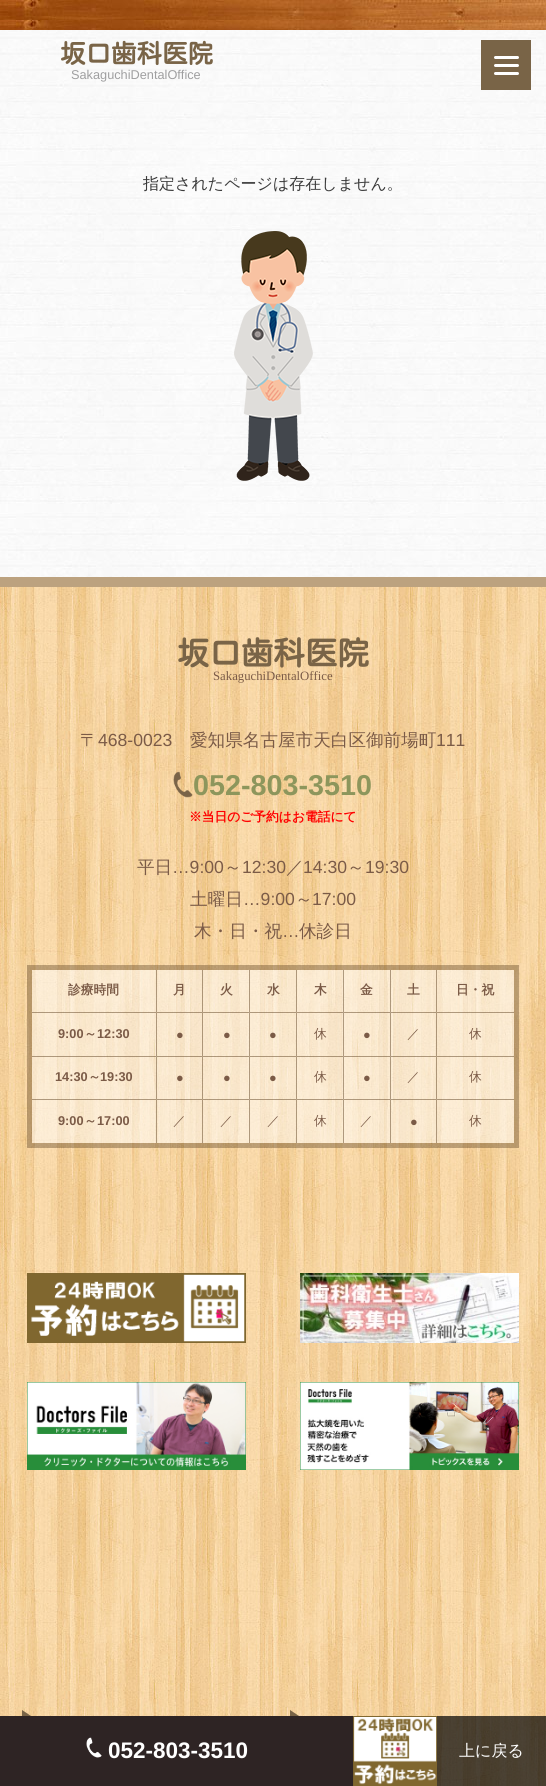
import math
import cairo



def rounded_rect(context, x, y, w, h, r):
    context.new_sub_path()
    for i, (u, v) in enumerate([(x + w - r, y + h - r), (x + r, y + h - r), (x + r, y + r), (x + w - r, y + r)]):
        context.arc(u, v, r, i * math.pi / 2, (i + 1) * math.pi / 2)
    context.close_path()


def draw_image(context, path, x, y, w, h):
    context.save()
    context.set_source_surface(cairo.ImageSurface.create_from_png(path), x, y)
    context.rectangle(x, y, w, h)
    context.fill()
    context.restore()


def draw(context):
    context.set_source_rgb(1, 1, 1)
    context.paint()
    draw_image(context, "images/1.png", 0, 30, 546, 547)
    draw_image(context, "images/2.png", 0, 0, 546, 30)
    context.set_source_rgb(121 / 255, 100 / 255, 71 / 255)
    context.rectangle(481, 40, 50, 50)
    context.fill()
    context.set_source_rgb(1, 1, 1)
    rounded_rect(context, 494, 64, 25, 3, 1.5)
    context.fill()
    rounded_rect(context, 494, 56, 25, 3, 1.5)
    context.fill()
    rounded_rect(context, 494, 72, 25, 3, 1.5)
    context.fill()
    draw_image(context, "images/3.png", 234, 231, 79, 250)
    draw_image(context, "images/4.png", 0, 587, 546, 1199)
    context.set_source_rgb(188 / 255, 162 / 255, 127 / 255)
    context.rectangle(0, 577, 546, 10)
    context.fill()
    draw_image(context, "images/5.png", 173, 771, 20, 27)
    context.rectangle(29.5, 967.5, 487, 178)
    context.set_source_rgba(97 / 255, 68 / 255, 37 / 255, 0.4)
    context.set_line_width(5)
    context.stroke()
    context.set_source_rgba(1, 1, 1, 0.5)
    context.rectangle(32, 970, 124, 43)
    context.fill()
    context.set_source_rgba(97 / 255, 68 / 255, 37 / 255, 0.5)
    context.rectangle(32, 1012, 124, 1)
    context.fill()
    context.set_source_rgba(1, 1, 1, 0.5)
    context.rectangle(156, 970, 46, 43)
    context.fill()
    context.set_source_rgba(97 / 255, 68 / 255, 37 / 255, 0.5)
    context.new_path()
    context.move_to(202, 1013)
    context.line_to(156, 1013)
    context.line_to(157, 1012)
    context.line_to(202, 1012)
    context.close_path()
    context.fill()
    context.new_path()
    context.move_to(156, 1013)
    context.line_to(156, 970)
    context.line_to(157, 970)
    context.line_to(157, 1012)
    context.close_path()
    context.fill()
    context.set_source_rgba(1, 1, 1, 0.5)
    context.rectangle(202, 970, 47, 43)
    context.fill()
    context.set_source_rgba(97 / 255, 68 / 255, 37 / 255, 0.5)
    context.new_path()
    context.move_to(249, 1013)
    context.line_to(202, 1013)
    context.line_to(203, 1012)
    context.line_to(249, 1012)
    context.close_path()
    context.fill()
    context.new_path()
    context.move_to(202, 1013)
    context.line_to(202, 970)
    context.line_to(203, 970)
    context.line_to(203, 1012)
    context.close_path()
    context.fill()
    context.set_source_rgba(1, 1, 1, 0.5)
    context.rectangle(249, 970, 47, 43)
    context.fill()
    context.set_source_rgba(97 / 255, 68 / 255, 37 / 255, 0.5)
    context.new_path()
    context.move_to(296, 1013)
    context.line_to(249, 1013)
    context.line_to(250, 1012)
    context.line_to(296, 1012)
    context.close_path()
    context.fill()
    context.new_path()
    context.move_to(249, 1013)
    context.line_to(249, 970)
    context.line_to(250, 970)
    context.line_to(250, 1012)
    context.close_path()
    context.fill()
    context.set_source_rgba(1, 1, 1, 0.5)
    context.rectangle(296, 970, 47, 43)
    context.fill()
    context.set_source_rgba(97 / 255, 68 / 255, 37 / 255, 0.5)
    context.new_path()
    context.move_to(343, 1013)
    context.line_to(296, 1013)
    context.line_to(297, 1012)
    context.line_to(343, 1012)
    context.close_path()
    context.fill()
    context.new_path()
    context.move_to(296, 1013)
    context.line_to(296, 970)
    context.line_to(297, 970)
    context.line_to(297, 1012)
    context.close_path()
    context.fill()
    context.set_source_rgba(1, 1, 1, 0.5)
    context.rectangle(343, 970, 47, 43)
    context.fill()
    context.set_source_rgba(97 / 255, 68 / 255, 37 / 255, 0.5)
    context.new_path()
    context.move_to(390, 1013)
    context.line_to(343, 1013)
    context.line_to(344, 1012)
    context.line_to(390, 1012)
    context.close_path()
    context.fill()
    context.new_path()
    context.move_to(343, 1013)
    context.line_to(343, 970)
    context.line_to(344, 970)
    context.line_to(344, 1012)
    context.close_path()
    context.fill()
    context.set_source_rgba(1, 1, 1, 0.5)
    context.rectangle(390, 970, 46, 43)
    context.fill()
    context.set_source_rgba(97 / 255, 68 / 255, 37 / 255, 0.5)
    context.new_path()
    context.move_to(436, 1013)
    context.line_to(390, 1013)
    context.line_to(391, 1012)
    context.line_to(436, 1012)
    context.close_path()
    context.fill()
    context.new_path()
    context.move_to(390, 1013)
    context.line_to(390, 970)
    context.line_to(391, 970)
    context.line_to(391, 1012)
    context.close_path()
    context.fill()
    context.set_source_rgba(1, 1, 1, 0.5)
    context.rectangle(436, 970, 78, 43)
    context.fill()
    context.set_source_rgba(97 / 255, 68 / 255, 37 / 255, 0.5)
    context.new_path()
    context.move_to(514, 1013)
    context.line_to(436, 1013)
    context.line_to(437, 1012)
    context.line_to(514, 1012)
    context.close_path()
    context.fill()
    context.new_path()
    context.move_to(436, 1013)
    context.line_to(436, 970)
    context.line_to(437, 970)
    context.line_to(437, 1012)
    context.close_path()
    context.fill()
    context.set_source_rgba(1, 1, 1, 0.5)
    context.rectangle(32, 1013, 124, 44)
    context.fill()
    context.set_source_rgba(97 / 255, 68 / 255, 37 / 255, 0.5)
    context.rectangle(32, 1056, 124, 1)
    context.fill()
    context.set_source_rgba(1, 1, 1, 0.5)
    context.rectangle(156, 1013, 46, 44)
    context.fill()
    context.set_source_rgba(97 / 255, 68 / 255, 37 / 255, 0.5)
    context.new_path()
    context.move_to(202, 1057)
    context.line_to(156, 1057)
    context.line_to(157, 1056)
    context.line_to(202, 1056)
    context.close_path()
    context.fill()
    context.new_path()
    context.move_to(156, 1057)
    context.line_to(156, 1013)
    context.line_to(157, 1013)
    context.line_to(157, 1056)
    context.close_path()
    context.fill()
    context.set_source_rgba(1, 1, 1, 0.5)
    context.rectangle(202, 1013, 47, 44)
    context.fill()
    context.set_source_rgba(97 / 255, 68 / 255, 37 / 255, 0.5)
    context.new_path()
    context.move_to(249, 1057)
    context.line_to(202, 1057)
    context.line_to(203, 1056)
    context.line_to(249, 1056)
    context.close_path()
    context.fill()
    context.new_path()
    context.move_to(202, 1057)
    context.line_to(202, 1013)
    context.line_to(203, 1013)
    context.line_to(203, 1056)
    context.close_path()
    context.fill()
    context.set_source_rgba(1, 1, 1, 0.5)
    context.rectangle(249, 1013, 47, 44)
    context.fill()
    context.set_source_rgba(97 / 255, 68 / 255, 37 / 255, 0.5)
    context.new_path()
    context.move_to(296, 1057)
    context.line_to(249, 1057)
    context.line_to(250, 1056)
    context.line_to(296, 1056)
    context.close_path()
    context.fill()
    context.new_path()
    context.move_to(249, 1057)
    context.line_to(249, 1013)
    context.line_to(250, 1013)
    context.line_to(250, 1056)
    context.close_path()
    context.fill()
    context.set_source_rgba(1, 1, 1, 0.5)
    context.rectangle(296, 1013, 47, 44)
    context.fill()
    context.set_source_rgba(97 / 255, 68 / 255, 37 / 255, 0.5)
    context.new_path()
    context.move_to(343, 1057)
    context.line_to(296, 1057)
    context.line_to(297, 1056)
    context.line_to(343, 1056)
    context.close_path()
    context.fill()
    context.new_path()
    context.move_to(296, 1057)
    context.line_to(296, 1013)
    context.line_to(297, 1013)
    context.line_to(297, 1056)
    context.close_path()
    context.fill()
    context.set_source_rgba(1, 1, 1, 0.5)
    context.rectangle(343, 1013, 47, 44)
    context.fill()
    context.set_source_rgba(97 / 255, 68 / 255, 37 / 255, 0.5)
    context.new_path()
    context.move_to(390, 1057)
    context.line_to(343, 1057)
    context.line_to(344, 1056)
    context.line_to(390, 1056)
    context.close_path()
    context.fill()
    context.new_path()
    context.move_to(343, 1057)
    context.line_to(343, 1013)
    context.line_to(344, 1013)
    context.line_to(344, 1056)
    context.close_path()
    context.fill()
    context.set_source_rgba(1, 1, 1, 0.5)
    context.rectangle(390, 1013, 46, 44)
    context.fill()
    context.set_source_rgba(97 / 255, 68 / 255, 37 / 255, 0.5)
    context.new_path()
    context.move_to(436, 1057)
    context.line_to(390, 1057)
    context.line_to(391, 1056)
    context.line_to(436, 1056)
    context.close_path()
    context.fill()
    context.new_path()
    context.move_to(390, 1057)
    context.line_to(390, 1013)
    context.line_to(391, 1013)
    context.line_to(391, 1056)
    context.close_path()
    context.fill()
    context.set_source_rgba(1, 1, 1, 0.5)
    context.rectangle(436, 1013, 78, 44)
    context.fill()
    context.set_source_rgba(97 / 255, 68 / 255, 37 / 255, 0.5)
    context.new_path()
    context.move_to(514, 1057)
    context.line_to(436, 1057)
    context.line_to(437, 1056)
    context.line_to(514, 1056)
    context.close_path()
    context.fill()
    context.new_path()
    context.move_to(436, 1057)
    context.line_to(436, 1013)
    context.line_to(437, 1013)
    context.line_to(437, 1056)
    context.close_path()
    context.fill()
    context.set_source_rgba(1, 1, 1, 0.5)
    context.rectangle(32, 1057, 124, 43)
    context.fill()
    context.set_source_rgba(97 / 255, 68 / 255, 37 / 255, 0.5)
    context.rectangle(32, 1099, 124, 1)
    context.fill()
    context.set_source_rgba(1, 1, 1, 0.5)
    context.rectangle(156, 1057, 46, 43)
    context.fill()
    context.set_source_rgba(97 / 255, 68 / 255, 37 / 255, 0.5)
    context.new_path()
    context.move_to(202, 1100)
    context.line_to(156, 1100)
    context.line_to(157, 1099)
    context.line_to(202, 1099)
    context.close_path()
    context.fill()
    context.new_path()
    context.move_to(156, 1100)
    context.line_to(156, 1057)
    context.line_to(157, 1057)
    context.line_to(157, 1099)
    context.close_path()
    context.fill()
    context.set_source_rgba(1, 1, 1, 0.5)
    context.rectangle(202, 1057, 47, 43)
    context.fill()
    context.set_source_rgba(97 / 255, 68 / 255, 37 / 255, 0.5)
    context.new_path()
    context.move_to(249, 1100)
    context.line_to(202, 1100)
    context.line_to(203, 1099)
    context.line_to(249, 1099)
    context.close_path()
    context.fill()
    context.new_path()
    context.move_to(202, 1100)
    context.line_to(202, 1057)
    context.line_to(203, 1057)
    context.line_to(203, 1099)
    context.close_path()
    context.fill()
    context.set_source_rgba(1, 1, 1, 0.5)
    context.rectangle(249, 1057, 47, 43)
    context.fill()
    context.set_source_rgba(97 / 255, 68 / 255, 37 / 255, 0.5)
    context.new_path()
    context.move_to(296, 1100)
    context.line_to(249, 1100)
    context.line_to(250, 1099)
    context.line_to(296, 1099)
    context.close_path()
    context.fill()
    context.new_path()
    context.move_to(249, 1100)
    context.line_to(249, 1057)
    context.line_to(250, 1057)
    context.line_to(250, 1099)
    context.close_path()
    context.fill()
    context.set_source_rgba(1, 1, 1, 0.5)
    context.rectangle(296, 1057, 47, 43)
    context.fill()
    context.set_source_rgba(97 / 255, 68 / 255, 37 / 255, 0.5)
    context.new_path()
    context.move_to(343, 1100)
    context.line_to(296, 1100)
    context.line_to(297, 1099)
    context.line_to(343, 1099)
    context.close_path()
    context.fill()
    context.new_path()
    context.move_to(296, 1100)
    context.line_to(296, 1057)
    context.line_to(297, 1057)
    context.line_to(297, 1099)
    context.close_path()
    context.fill()
    context.set_source_rgba(1, 1, 1, 0.5)
    context.rectangle(343, 1057, 47, 43)
    context.fill()
    context.set_source_rgba(97 / 255, 68 / 255, 37 / 255, 0.5)
    context.new_path()
    context.move_to(390, 1100)
    context.line_to(343, 1100)
    context.line_to(344, 1099)
    context.line_to(390, 1099)
    context.close_path()
    context.fill()
    context.new_path()
    context.move_to(343, 1100)
    context.line_to(343, 1057)
    context.line_to(344, 1057)
    context.line_to(344, 1099)
    context.close_path()
    context.fill()
    context.set_source_rgba(1, 1, 1, 0.5)
    context.rectangle(390, 1057, 46, 43)
    context.fill()
    context.set_source_rgba(97 / 255, 68 / 255, 37 / 255, 0.5)
    context.new_path()
    context.move_to(436, 1100)
    context.line_to(390, 1100)
    context.line_to(391, 1099)
    context.line_to(436, 1099)
    context.close_path()
    context.fill()
    context.new_path()
    context.move_to(390, 1100)
    context.line_to(390, 1057)
    context.line_to(391, 1057)
    context.line_to(391, 1099)
    context.close_path()
    context.fill()
    context.set_source_rgba(1, 1, 1, 0.5)
    context.rectangle(436, 1057, 78, 43)
    context.fill()
    context.set_source_rgba(97 / 255, 68 / 255, 37 / 255, 0.5)
    context.new_path()
    context.move_to(514, 1100)
    context.line_to(436, 1100)
    context.line_to(437, 1099)
    context.line_to(514, 1099)
    context.close_path()
    context.fill()
    context.new_path()
    context.move_to(436, 1100)
    context.line_to(436, 1057)
    context.line_to(437, 1057)
    context.line_to(437, 1099)
    context.close_path()
    context.fill()
    context.set_source_rgba(1, 1, 1, 0.5)
    context.rectangle(32, 1100, 124, 43)
    context.fill()
    context.rectangle(156, 1100, 46, 43)
    context.fill()
    context.set_source_rgba(97 / 255, 68 / 255, 37 / 255, 0.5)
    context.rectangle(156, 1100, 1, 43)
    context.fill()
    context.set_source_rgba(1, 1, 1, 0.5)
    context.rectangle(202, 1100, 47, 43)
    context.fill()
    context.set_source_rgba(97 / 255, 68 / 255, 37 / 255, 0.5)
    context.rectangle(202, 1100, 1, 43)
    context.fill()
    context.set_source_rgba(1, 1, 1, 0.5)
    context.rectangle(249, 1100, 47, 43)
    context.fill()
    context.set_source_rgba(97 / 255, 68 / 255, 37 / 255, 0.5)
    context.rectangle(249, 1100, 1, 43)
    context.fill()
    context.set_source_rgba(1, 1, 1, 0.5)
    context.rectangle(296, 1100, 47, 43)
    context.fill()
    context.set_source_rgba(97 / 255, 68 / 255, 37 / 255, 0.5)
    context.rectangle(296, 1100, 1, 43)
    context.fill()
    context.set_source_rgba(1, 1, 1, 0.5)
    context.rectangle(343, 1100, 47, 43)
    context.fill()
    context.set_source_rgba(97 / 255, 68 / 255, 37 / 255, 0.5)
    context.rectangle(343, 1100, 1, 43)
    context.fill()
    context.set_source_rgba(1, 1, 1, 0.5)
    context.rectangle(390, 1100, 46, 43)
    context.fill()
    context.set_source_rgba(97 / 255, 68 / 255, 37 / 255, 0.5)
    context.rectangle(390, 1100, 1, 43)
    context.fill()
    context.set_source_rgba(1, 1, 1, 0.5)
    context.rectangle(436, 1100, 78, 43)
    context.fill()
    context.set_source_rgba(97 / 255, 68 / 255, 37 / 255, 0.5)
    context.rectangle(436, 1100, 1, 43)
    context.fill()
    draw_image(context, "images/6.png", 27, 1273, 219, 70)
    draw_image(context, "images/7.png", 300, 1273, 219, 70)
    draw_image(context, "images/8.png", 27, 1382, 219, 88)
    draw_image(context, "images/9.png", 300, 1382, 219, 88)
    context.set_source_rgb(121 / 255, 100 / 255, 71 / 255)
    context.new_path()
    context.move_to(22, 1722)
    context.line_to(22, 1710)
    context.line_to(31, 1716)
    context.close_path()
    context.fill()
    context.new_path()
    context.move_to(290, 1722)
    context.line_to(290, 1710)
    context.line_to(299, 1716)
    context.close_path()
    context.fill()
    context.set_source_rgb(46 / 255, 36 / 255, 36 / 255)
    context.rectangle(0, 1716, 354, 70)
    context.fill()
    draw_image(context, "images/10.png", 86, 1737, 16, 21)
    draw_image(context, "images/11.png", 353, 1716, 84, 70)
    context.set_source_rgba(0, 0, 0, 0.7)
    context.rectangle(437, 1716, 109, 70)
    context.fill()
    context.select_font_face("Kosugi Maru", cairo.FontSlant.NORMAL, cairo.FontWeight.BOLD)
    context.set_font_size(25.5)
    context.set_source_rgb(121 / 255, 100 / 255, 71 / 255)
    context.move_to(60, 63)
    context.show_text("坂口歯科医院")
    context.select_font_face("Liberation Sans")
    context.set_font_size(12.75)
    context.set_source_rgb(159 / 255, 159 / 255, 160 / 255)
    context.move_to(71, 79)
    context.show_text("SakaguchiDentalOffice")
    context.select_font_face("WenQuanYi Zen Hei Medium")
    context.set_font_size(16)
    context.set_source_rgb(58 / 255, 58 / 255, 58 / 255)
    context.move_to(143, 189)
    context.show_text("指定されたページは存在しません。")
    context.select_font_face("Kosugi Maru", cairo.FontSlant.NORMAL, cairo.FontWeight.BOLD)
    context.set_font_size(32)
    context.set_source_rgb(121 / 255, 100 / 255, 71 / 255)
    context.move_to(177, 665)
    context.show_text("坂口歯科医院")
    context.select_font_face("Liberation Serif")
    context.set_font_size(12.75)
    context.set_source_rgb(123 / 255, 91 / 255, 71 / 255)
    context.move_to(213, 680)
    context.show_text("SakaguchiDentalOffice")
    context.select_font_face("WenQuanYi Zen Hei Medium")
    context.set_font_size(17.6)
    context.move_to(80, 746)
    context.show_text("〒")
    context.select_font_face("Liberation Sans")
    context.move_to(98, 746)
    context.show_text("468-0023")
    context.select_font_face("WenQuanYi Zen Hei Medium")
    context.move_to(190, 746)
    context.show_text("愛知県名古屋市天白区御前場町")
    context.select_font_face("Liberation Sans")
    context.move_to(436, 746)
    context.show_text("111")
    context.select_font_face("Liberation Sans", cairo.FontSlant.NORMAL, cairo.FontWeight.BOLD)
    context.set_font_size(28.75)
    context.set_source_rgb(141 / 255, 150 / 255, 92 / 255)
    context.move_to(193, 795)
    context.show_text("052-803-3510")
    context.select_font_face("WenQuanYi Zen Hei", cairo.FontSlant.NORMAL, cairo.FontWeight.BOLD)
    context.set_font_size(12.75)
    context.set_source_rgb(1, 0, 0)
    context.move_to(189, 821)
    context.show_text("※当日のご予約はお電話にて")
    context.select_font_face("WenQuanYi Zen Hei Medium")
    context.set_font_size(17.6)
    context.set_source_rgb(123 / 255, 91 / 255, 71 / 255)
    context.move_to(137, 873)
    context.show_text("平日")
    context.select_font_face("Liberation Sans")
    context.move_to(172, 873)
    context.show_text("…9:00")
    context.select_font_face("WenQuanYi Zen Hei Medium")
    context.move_to(224, 873)
    context.show_text("～")
    context.select_font_face("Liberation Sans")
    context.move_to(242, 873)
    context.show_text("12:30")
    context.select_font_face("WenQuanYi Zen Hei Medium")
    context.move_to(286, 873)
    context.show_text("／")
    context.select_font_face("Liberation Sans")
    context.move_to(303, 873)
    context.show_text("14:30")
    context.select_font_face("WenQuanYi Zen Hei Medium")
    context.move_to(347, 873)
    context.show_text("～")
    context.select_font_face("Liberation Sans")
    context.move_to(365, 873)
    context.show_text("19:30")
    context.select_font_face("WenQuanYi Zen Hei Medium")
    context.move_to(190, 905)
    context.show_text("土曜日")
    context.select_font_face("Liberation Sans")
    context.move_to(243, 905)
    context.show_text("…9:00")
    context.select_font_face("WenQuanYi Zen Hei Medium")
    context.move_to(295, 905)
    context.show_text("～")
    context.select_font_face("Liberation Sans")
    context.move_to(312, 905)
    context.show_text("17:00")
    context.select_font_face("WenQuanYi Zen Hei Medium")
    context.move_to(194, 937)
    context.show_text("木・日・祝")
    context.select_font_face("Liberation Sans")
    context.move_to(282, 937)
    context.show_text("…")
    context.select_font_face("WenQuanYi Zen Hei Medium")
    context.move_to(299, 937)
    context.show_text("休診日")
    context.select_font_face("WenQuanYi Zen Hei", cairo.FontSlant.NORMAL, cairo.FontWeight.BOLD)
    context.set_font_size(12.75)
    context.move_to(68, 994)
    context.show_text("診療時間")
    context.move_to(173, 994)
    context.show_text("月")
    context.move_to(220, 994)
    context.show_text("火")
    context.move_to(267, 994)
    context.show_text("水")
    context.move_to(314, 994)
    context.show_text("木")
    context.move_to(360, 994)
    context.show_text("金")
    context.move_to(407, 994)
    context.show_text("土")
    context.move_to(456, 994)
    context.show_text("日・祝")
    context.select_font_face("Liberation Sans", cairo.FontSlant.NORMAL, cairo.FontWeight.BOLD)
    context.move_to(58, 1038)
    context.show_text("9:00")
    context.select_font_face("WenQuanYi Zen Hei", cairo.FontSlant.NORMAL, cairo.FontWeight.BOLD)
    context.move_to(84, 1038)
    context.show_text("～")
    context.select_font_face("Liberation Sans", cairo.FontSlant.NORMAL, cairo.FontWeight.BOLD)
    context.move_to(97, 1038)
    context.show_text("12:30")
    context.select_font_face("Liberation Sans")
    context.move_to(176, 1039)
    context.show_text("●")
    context.move_to(223, 1039)
    context.show_text("●")
    context.move_to(269, 1039)
    context.show_text("●")
    context.select_font_face("WenQuanYi Zen Hei Medium")
    context.move_to(314, 1038)
    context.show_text("休")
    context.select_font_face("Liberation Sans")
    context.move_to(363, 1039)
    context.show_text("●")
    context.select_font_face("WenQuanYi Zen Hei Medium")
    context.move_to(407, 1038)
    context.show_text("／")
    context.move_to(469, 1038)
    context.show_text("休")
    context.select_font_face("Liberation Sans", cairo.FontSlant.NORMAL, cairo.FontWeight.BOLD)
    context.move_to(55, 1081)
    context.show_text("14:30")
    context.select_font_face("WenQuanYi Zen Hei", cairo.FontSlant.NORMAL, cairo.FontWeight.BOLD)
    context.move_to(88, 1081)
    context.show_text("～")
    context.select_font_face("Liberation Sans", cairo.FontSlant.NORMAL, cairo.FontWeight.BOLD)
    context.move_to(100, 1081)
    context.show_text("19:30")
    context.select_font_face("Liberation Sans")
    context.move_to(176, 1082)
    context.show_text("●")
    context.move_to(223, 1082)
    context.show_text("●")
    context.move_to(269, 1082)
    context.show_text("●")
    context.select_font_face("WenQuanYi Zen Hei Medium")
    context.move_to(314, 1081)
    context.show_text("休")
    context.select_font_face("Liberation Sans")
    context.move_to(363, 1082)
    context.show_text("●")
    context.select_font_face("WenQuanYi Zen Hei Medium")
    context.move_to(407, 1081)
    context.show_text("／")
    context.move_to(469, 1081)
    context.show_text("休")
    context.select_font_face("Liberation Sans", cairo.FontSlant.NORMAL, cairo.FontWeight.BOLD)
    context.move_to(58, 1125)
    context.show_text("9:00")
    context.select_font_face("WenQuanYi Zen Hei", cairo.FontSlant.NORMAL, cairo.FontWeight.BOLD)
    context.move_to(84, 1125)
    context.show_text("～")
    context.select_font_face("Liberation Sans", cairo.FontSlant.NORMAL, cairo.FontWeight.BOLD)
    context.move_to(97, 1125)
    context.show_text("17:00")
    context.select_font_face("WenQuanYi Zen Hei Medium")
    context.move_to(173, 1125)
    context.show_text("／")
    context.move_to(220, 1125)
    context.show_text("／")
    context.move_to(267, 1125)
    context.show_text("／")
    context.move_to(314, 1125)
    context.show_text("休")
    context.move_to(360, 1125)
    context.show_text("／")
    context.select_font_face("Liberation Sans")
    context.move_to(410, 1126)
    context.show_text("●")
    context.select_font_face("WenQuanYi Zen Hei Medium")
    context.move_to(469, 1125)
    context.show_text("休")
    context.select_font_face("Liberation Sans", cairo.FontSlant.NORMAL, cairo.FontWeight.BOLD)
    context.set_font_size(22.5)
    context.set_source_rgb(1, 1, 1)
    context.move_to(108, 1758)
    context.show_text("052-803-3510")
    context.select_font_face("WenQuanYi Zen Hei Medium")
    context.set_font_size(16)
    context.move_to(459, 1756)
    context.show_text("上に戻る")


surface = cairo.ImageSurface(cairo.Format.RGB24, 546, 1786)
context = cairo.Context(surface)
options = cairo.FontOptions()
options.set_hint_metrics(cairo.HintMetrics.OFF)
options.set_hint_style(cairo.HintStyle.NONE)
context.set_font_options(options)
context.set_miter_limit(4)
draw(context)
surface.write_to_png("out.png")
